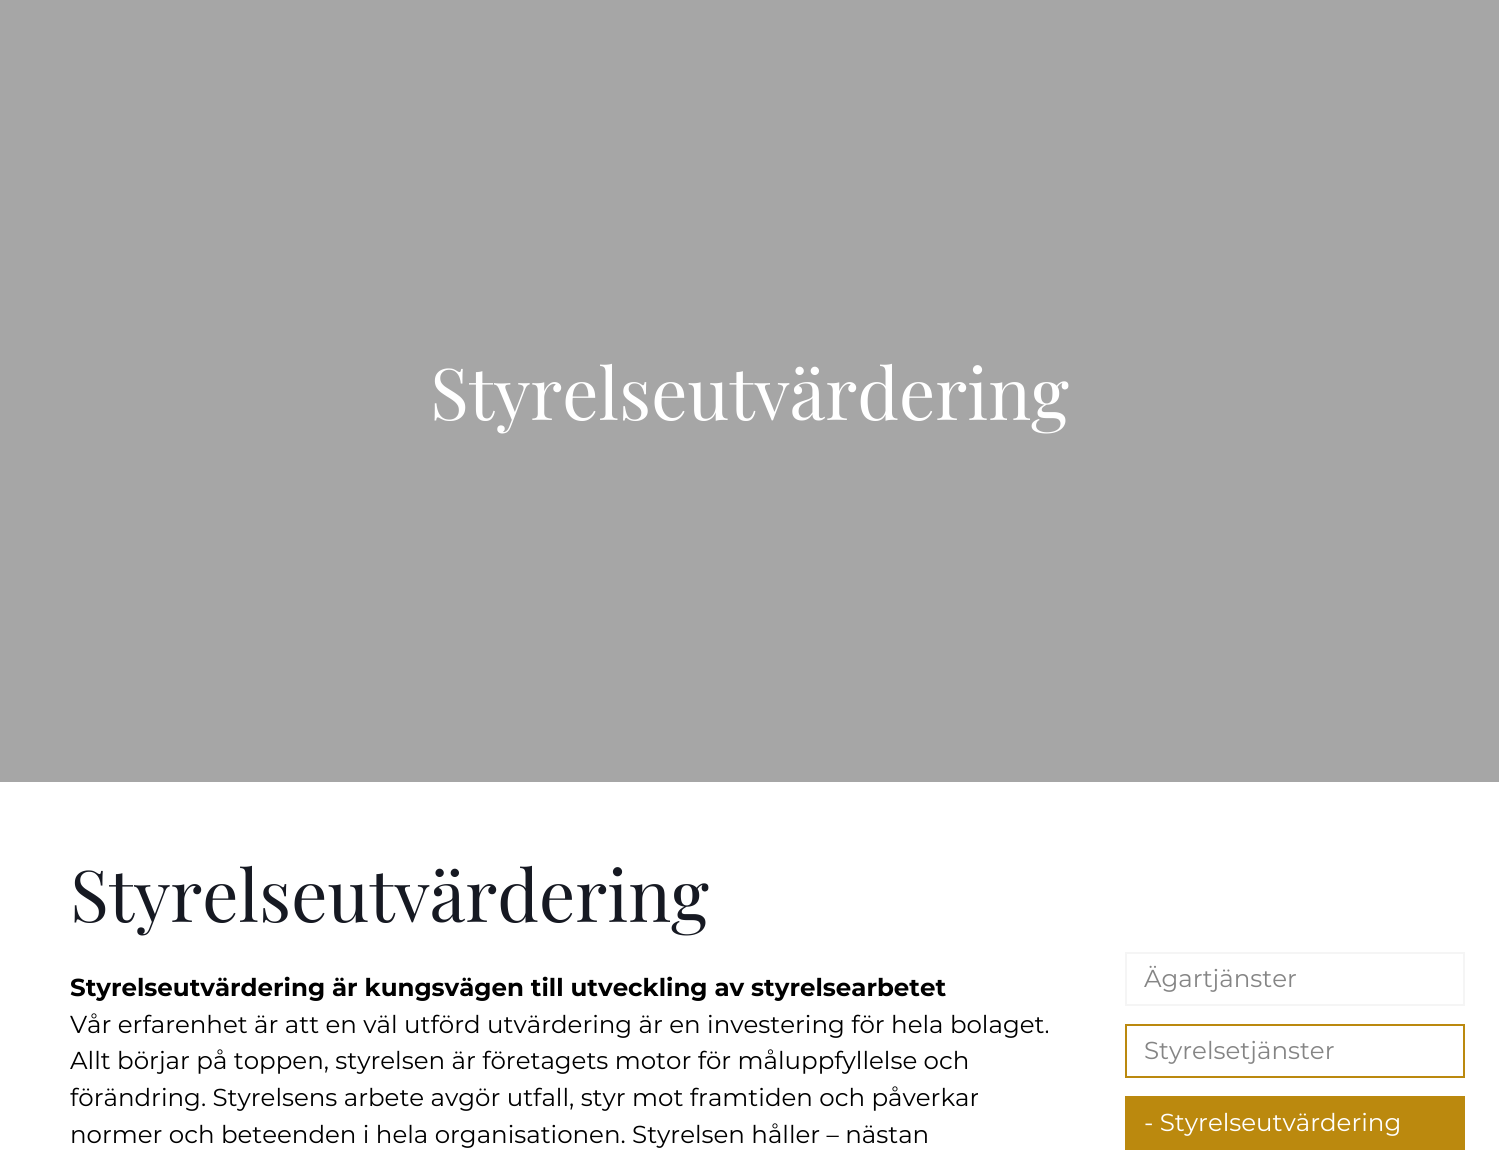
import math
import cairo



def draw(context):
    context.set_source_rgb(1, 1, 1)
    context.paint()
    context.set_source_rgb(166 / 255, 166 / 255, 166 / 255)
    context.rectangle(0, 0, 1499, 782)
    context.fill()
    context.rectangle(1126, 953, 338, 52)
    context.set_source_rgb(245 / 255, 245 / 255, 245 / 255)
    context.stroke()
    context.rectangle(1126, 1025, 338, 52)
    context.set_source_rgb(187 / 255, 137 / 255, 14 / 255)
    context.stroke()
    context.rectangle(1125, 1096, 340, 54)
    context.fill()
    context.select_font_face("Playfair Display")
    context.set_font_size(71.75)
    context.set_source_rgb(1, 1, 1)
    context.move_to(430, 420)
    context.show_text("Styrelseutvärdering")
    context.set_source_rgb(22 / 255, 25 / 255, 34 / 255)
    context.move_to(70, 922)
    context.show_text("Styrelseutvärdering")
    context.select_font_face("Montserrat", cairo.FontSlant.NORMAL, cairo.FontWeight.BOLD)
    context.set_font_size(24.5)
    context.set_source_rgb(0, 0, 0)
    context.move_to(70, 996)
    context.show_text("Styrelseutvärdering är kungsvägen till utveckling av styrelsearbetet")
    context.select_font_face("Montserrat")
    context.move_to(70, 1033)
    context.show_text("Vår erfarenhet är att en väl utförd utvärdering är en investering för hela bolaget.")
    context.move_to(70, 1069)
    context.show_text("Allt börjar på toppen, styrelsen är företagets motor för måluppfyllelse och")
    context.move_to(70, 1106)
    context.show_text("förändring. Styrelsens arbete avgör utfall, styr mot framtiden och påverkar")
    context.move_to(70, 1143)
    context.show_text("normer och beteenden i hela organisationen. Styrelsen håller – nästan")
    context.set_source_rgb(133 / 255, 133 / 255, 133 / 255)
    context.move_to(1144, 987)
    context.show_text("Ägartjänster")
    context.move_to(1144, 1059)
    context.show_text("Styrelsetjänster")
    context.set_source_rgb(1, 1, 1)
    context.move_to(1144, 1131)
    context.show_text("- Styrelseutvärdering")


surface = cairo.ImageSurface(cairo.Format.RGB24, 1499, 1157)
context = cairo.Context(surface)
options = cairo.FontOptions()
options.set_hint_metrics(cairo.HintMetrics.OFF)
options.set_hint_style(cairo.HintStyle.NONE)
context.set_font_options(options)
context.set_miter_limit(4)
draw(context)
surface.write_to_png("out.png")
